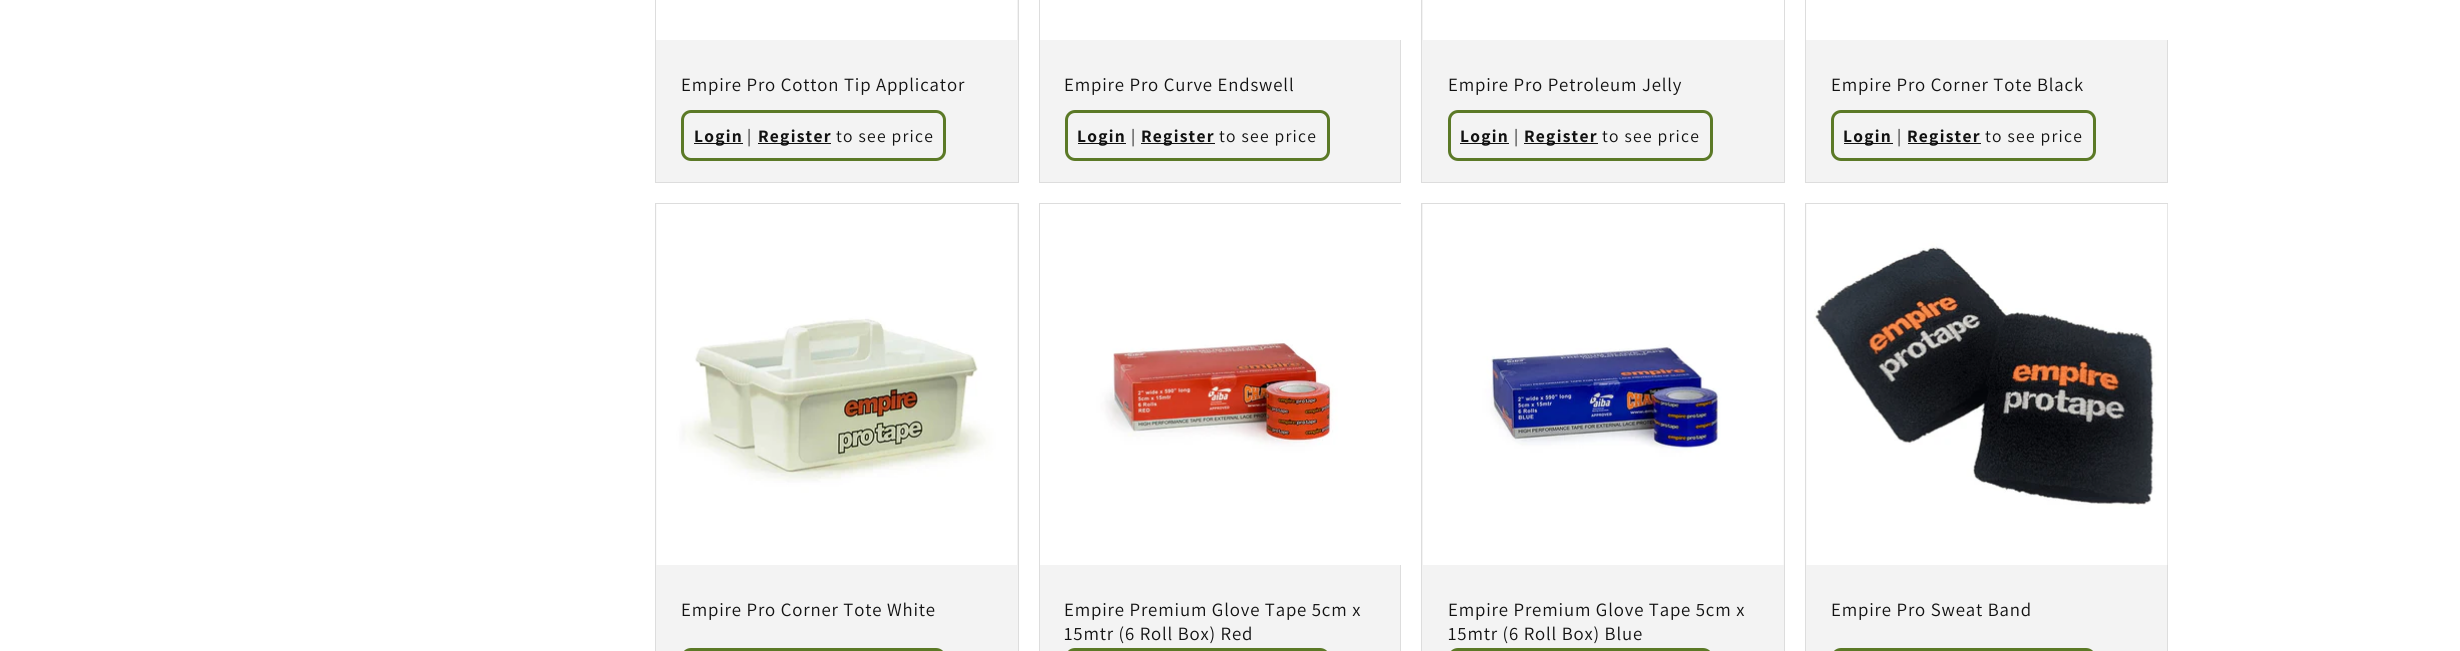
import math
import cairo



def draw_spaced(context, x, y, s, letter, word):
    context.move_to(x, y)
    for ch in s:
        context.show_text(ch)
        context.rel_move_to(letter + word * (ch == ' '), 0)


def rounded_rect(context, x, y, w, h, r):
    context.new_sub_path()
    for i, (u, v) in enumerate([(x + w - r, y + h - r), (x + r, y + h - r), (x + r, y + r), (x + w - r, y + r)]):
        context.arc(u, v, r, i * math.pi / 2, (i + 1) * math.pi / 2)
    context.close_path()


def draw_image(context, path, x, y, w, h):
    context.save()
    context.set_source_surface(cairo.ImageSurface.create_from_png(path), x, y)
    context.rectangle(x, y, w, h)
    context.fill()
    context.restore()


def draw(context):
    context.set_source_rgb(1, 1, 1)
    context.paint()
    context.set_source_rgb(243 / 255, 243 / 255, 243 / 255)
    context.rectangle(655.5, -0.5, 363, 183)
    context.fill_preserve()
    context.set_source_rgb(221 / 255, 221 / 255, 221 / 255)
    context.set_line_width(1)
    context.stroke()
    context.set_source_rgb(1, 1, 1)
    context.rectangle(656, 0, 361, 40)
    context.fill()
    rounded_rect(context, 682.5, 111.5, 262, 48, 8.5)
    context.set_source_rgb(91 / 255, 121 / 255, 38 / 255)
    context.set_line_width(3)
    context.stroke()
    context.set_source_rgb(18 / 255, 18 / 255, 18 / 255)
    context.rectangle(694, 143, 49, 1)
    context.fill()
    context.rectangle(758, 143, 73, 1)
    context.fill()
    context.set_source_rgb(243 / 255, 243 / 255, 243 / 255)
    context.rectangle(1040, 40, 360, 142)
    context.fill()
    context.rectangle(1039.5, -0.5, 361, 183)
    context.set_source_rgb(221 / 255, 221 / 255, 221 / 255)
    context.set_line_width(1)
    context.stroke()
    context.set_source_rgb(1, 1, 1)
    context.rectangle(1400, 0, 1, 40)
    context.fill()
    rounded_rect(context, 1066.5, 111.5, 262, 48, 8.5)
    context.set_source_rgb(91 / 255, 121 / 255, 38 / 255)
    context.set_line_width(3)
    context.stroke()
    context.set_source_rgb(18 / 255, 18 / 255, 18 / 255)
    context.rectangle(1078, 143, 48, 1)
    context.fill()
    context.rectangle(1141, 143, 74, 1)
    context.fill()
    context.set_source_rgb(243 / 255, 243 / 255, 243 / 255)
    context.rectangle(1421.5, -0.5, 363, 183)
    context.fill_preserve()
    context.set_source_rgb(221 / 255, 221 / 255, 221 / 255)
    context.set_line_width(1)
    context.stroke()
    context.set_source_rgb(1, 1, 1)
    context.rectangle(1423, 0, 361, 40)
    context.fill()
    rounded_rect(context, 1449.5, 111.5, 262, 48, 8.5)
    context.set_source_rgb(91 / 255, 121 / 255, 38 / 255)
    context.set_line_width(3)
    context.stroke()
    context.set_source_rgb(18 / 255, 18 / 255, 18 / 255)
    context.rectangle(1460, 143, 49, 1)
    context.fill()
    context.rectangle(1524, 143, 74, 1)
    context.fill()
    context.set_source_rgb(243 / 255, 243 / 255, 243 / 255)
    context.rectangle(1806, 40, 361, 142)
    context.fill()
    context.rectangle(1805.5, -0.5, 362, 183)
    context.set_source_rgb(221 / 255, 221 / 255, 221 / 255)
    context.set_line_width(1)
    context.stroke()
    context.set_source_rgb(1, 1, 1)
    context.rectangle(2167, 0, 1, 40)
    context.fill()
    rounded_rect(context, 1832.5, 111.5, 262, 48, 8.5)
    context.set_source_rgb(91 / 255, 121 / 255, 38 / 255)
    context.set_line_width(3)
    context.stroke()
    context.set_source_rgb(18 / 255, 18 / 255, 18 / 255)
    context.rectangle(1844, 143, 49, 1)
    context.fill()
    context.rectangle(1908, 143, 73, 1)
    context.fill()
    context.set_source_rgb(243 / 255, 243 / 255, 243 / 255)
    context.rectangle(655.5, 203.5, 363, 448)
    context.fill_preserve()
    context.set_source_rgb(221 / 255, 221 / 255, 221 / 255)
    context.set_line_width(1)
    context.stroke()
    draw_image(context, "images/1.png", 656, 204, 361, 361)
    rounded_rect(context, 682.5, 649.5, 262, 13, 8.5)
    context.set_source_rgb(91 / 255, 121 / 255, 38 / 255)
    context.set_line_width(3)
    context.stroke()
    context.set_source_rgb(243 / 255, 243 / 255, 243 / 255)
    context.rectangle(1040, 565, 360, 86)
    context.fill()
    context.rectangle(1039.5, 203.5, 361, 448)
    context.set_source_rgb(221 / 255, 221 / 255, 221 / 255)
    context.set_line_width(1)
    context.stroke()
    draw_image(context, "images/2.png", 1040, 204, 361, 361)
    rounded_rect(context, 1066.5, 649.5, 262, 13, 8.5)
    context.set_source_rgb(91 / 255, 121 / 255, 38 / 255)
    context.set_line_width(3)
    context.stroke()
    context.set_source_rgb(243 / 255, 243 / 255, 243 / 255)
    context.rectangle(1421.5, 203.5, 363, 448)
    context.fill_preserve()
    context.set_source_rgb(221 / 255, 221 / 255, 221 / 255)
    context.set_line_width(1)
    context.stroke()
    draw_image(context, "images/3.png", 1423, 204, 361, 361)
    rounded_rect(context, 1449.5, 649.5, 262, 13, 8.5)
    context.set_source_rgb(91 / 255, 121 / 255, 38 / 255)
    context.set_line_width(3)
    context.stroke()
    context.set_source_rgb(243 / 255, 243 / 255, 243 / 255)
    context.rectangle(1805.5, 203.5, 362, 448)
    context.fill_preserve()
    context.set_source_rgb(221 / 255, 221 / 255, 221 / 255)
    context.set_line_width(1)
    context.stroke()
    draw_image(context, "images/4.png", 1806, 204, 362, 361)
    rounded_rect(context, 1832.5, 649.5, 262, 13, 8.5)
    context.set_source_rgb(91 / 255, 121 / 255, 38 / 255)
    context.set_line_width(3)
    context.stroke()
    context.select_font_face("Assistant")
    context.set_font_size(18.75)
    context.set_source_rgb(18 / 255, 18 / 255, 18 / 255)
    draw_spaced(context, 681, 91, "Empire Pro Cotton Tip Applicator", 0.85, 0)
    context.select_font_face("Assistant", cairo.FontSlant.NORMAL, cairo.FontWeight.BOLD)
    context.set_font_size(17.5)
    draw_spaced(context, 694, 142, "Login", 1.25, 0)
    context.select_font_face("Assistant")
    draw_spaced(context, 747, 142, "|", 1.25, 0)
    context.select_font_face("Assistant", cairo.FontSlant.NORMAL, cairo.FontWeight.BOLD)
    draw_spaced(context, 758, 142, "Register", 1.25, 0)
    context.select_font_face("Assistant")
    draw_spaced(context, 836, 142, "to see price", 1.25, 0)
    context.set_font_size(18.75)
    draw_spaced(context, 1064, 91, "Empire Pro Curve Endswell", 0.85, 0)
    context.select_font_face("Assistant", cairo.FontSlant.NORMAL, cairo.FontWeight.BOLD)
    context.set_font_size(17.5)
    draw_spaced(context, 1077, 142, "Login", 1.25, 0)
    context.select_font_face("Assistant")
    draw_spaced(context, 1131, 142, "|", 1.25, 0)
    context.select_font_face("Assistant", cairo.FontSlant.NORMAL, cairo.FontWeight.BOLD)
    draw_spaced(context, 1141, 142, "Register", 1.25, 0)
    context.select_font_face("Assistant")
    draw_spaced(context, 1219, 142, "to see price", 1.25, 0)
    context.set_font_size(18.75)
    draw_spaced(context, 1448, 91, "Empire Pro Petroleum Jelly", 0.85, 0)
    context.select_font_face("Assistant", cairo.FontSlant.NORMAL, cairo.FontWeight.BOLD)
    context.set_font_size(17.5)
    draw_spaced(context, 1460, 142, "Login", 1.25, 0)
    context.select_font_face("Assistant")
    draw_spaced(context, 1514, 142, "|", 1.25, 0)
    context.select_font_face("Assistant", cairo.FontSlant.NORMAL, cairo.FontWeight.BOLD)
    draw_spaced(context, 1524, 142, "Register", 1.25, 0)
    context.select_font_face("Assistant")
    draw_spaced(context, 1602, 142, "to see price", 1.25, 0)
    context.set_font_size(18.75)
    draw_spaced(context, 1831, 91, "Empire Pro Corner Tote Black", 0.85, 0)
    context.select_font_face("Assistant", cairo.FontSlant.NORMAL, cairo.FontWeight.BOLD)
    context.set_font_size(17.5)
    draw_spaced(context, 1843, 142, "Login", 1.25, 0)
    context.select_font_face("Assistant")
    draw_spaced(context, 1897, 142, "|", 1.25, 0)
    context.select_font_face("Assistant", cairo.FontSlant.NORMAL, cairo.FontWeight.BOLD)
    draw_spaced(context, 1907, 142, "Register", 1.25, 0)
    context.select_font_face("Assistant")
    draw_spaced(context, 1985, 142, "to see price", 1.25, 0)
    context.set_font_size(18.75)
    draw_spaced(context, 681, 616, "Empire Pro Corner Tote White", 0.85, 0)
    draw_spaced(context, 1064, 616, "Empire Premium Glove Tape 5cm x", 0.85, 0)
    draw_spaced(context, 1064, 640, "15mtr (6 Roll Box) Red", 0.85, 0)
    draw_spaced(context, 1448, 616, "Empire Premium Glove Tape 5cm x", 0.85, 0)
    draw_spaced(context, 1448, 640, "15mtr (6 Roll Box) Blue", 0.85, 0)
    draw_spaced(context, 1831, 616, "Empire Pro Sweat Band", 0.85, 0)


surface = cairo.ImageSurface(cairo.Format.RGB24, 2460, 651)
context = cairo.Context(surface)
options = cairo.FontOptions()
options.set_hint_metrics(cairo.HintMetrics.OFF)
options.set_hint_style(cairo.HintStyle.NONE)
context.set_font_options(options)
context.set_miter_limit(4)
draw(context)
surface.write_to_png("out.png")
